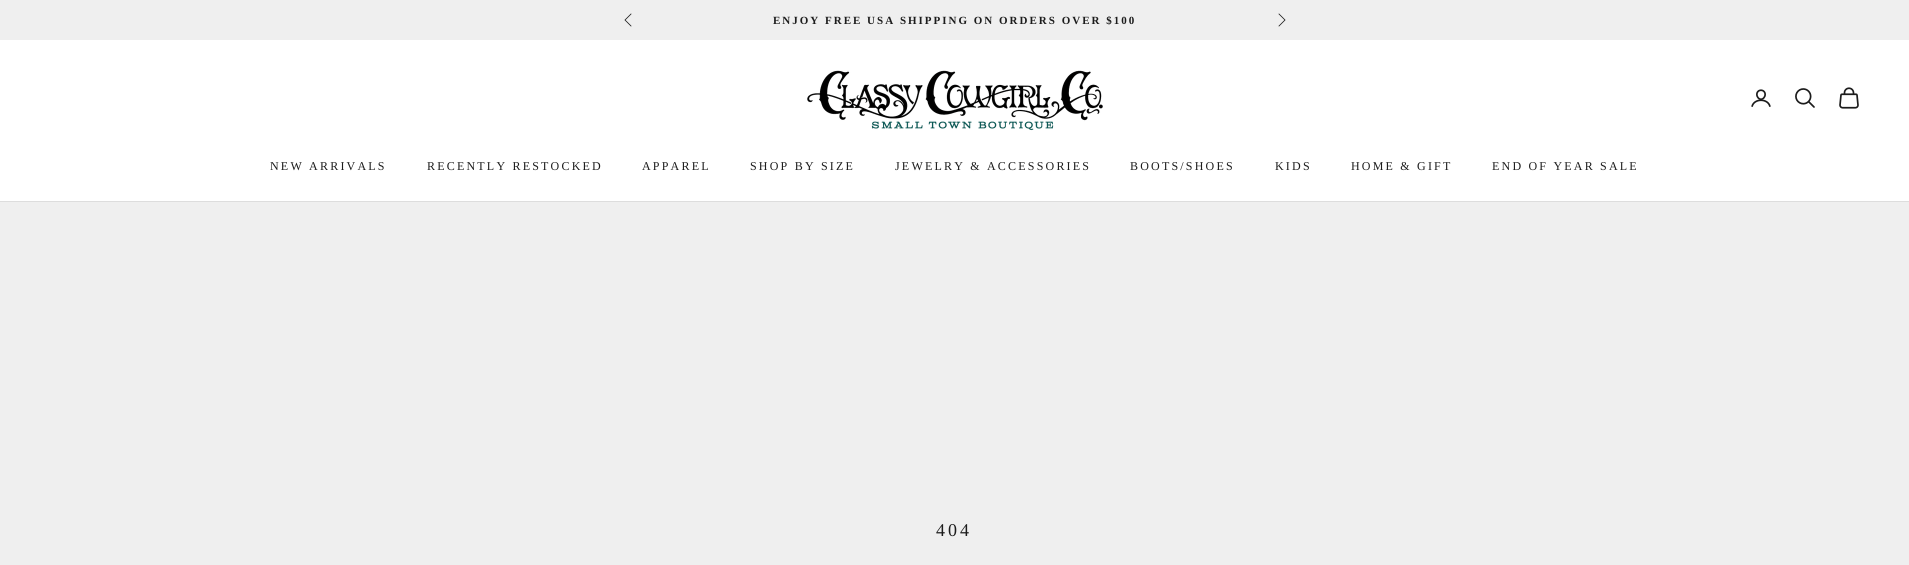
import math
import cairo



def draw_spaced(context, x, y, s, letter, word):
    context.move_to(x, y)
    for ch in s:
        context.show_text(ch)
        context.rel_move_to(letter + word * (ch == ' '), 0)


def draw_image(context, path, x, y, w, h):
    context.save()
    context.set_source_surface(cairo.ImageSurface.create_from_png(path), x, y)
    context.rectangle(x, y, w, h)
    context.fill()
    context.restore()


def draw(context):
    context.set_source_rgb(239 / 255, 239 / 255, 239 / 255)
    context.paint()
    context.new_path()
    context.move_to(631, 14)
    context.line_to(625, 20)
    context.line_to(631, 26)
    context.set_source_rgb(28 / 255, 28 / 255, 28 / 255)
    context.set_line_width(0.8)
    context.set_line_cap(cairo.LineCap.SQUARE)
    context.stroke()
    context.new_path()
    context.move_to(1279, 26)
    context.line_to(1285, 20)
    context.line_to(1279, 14)
    context.stroke()
    context.set_source_rgb(1, 1, 1)
    context.rectangle(0, 40, 1909, 161)
    context.fill()
    context.set_source_rgb(221 / 255, 221 / 255, 221 / 255)
    context.rectangle(0, 201, 1909, 1)
    context.fill()
    draw_image(context, "images/1.png", 807, 70, 296, 61)
    draw_image(context, "images/2.png", 1751, 89, 20, 18)
    draw_image(context, "images/3.png", 1795, 88, 20, 20)
    draw_image(context, "images/4.png", 1839, 87, 20, 22)
    context.select_font_face("Liberation Serif", cairo.FontSlant.NORMAL, cairo.FontWeight.BOLD)
    context.set_font_size(11)
    context.set_source_rgb(28 / 255, 28 / 255, 28 / 255)
    draw_spaced(context, 773, 24, "ENJOY FREE USA SHIPPING ON ORDERS OVER $100", 2, 0)
    context.select_font_face("Liberation Serif")
    context.set_font_size(12)
    draw_spaced(context, 270, 170, "NEW ARRIVALS", 2.2, 0)
    draw_spaced(context, 427, 170, "RECENTLY RESTOCKED", 2.2, 0)
    draw_spaced(context, 642, 170, "APPAREL", 2.2, 0)
    draw_spaced(context, 750, 170, "SHOP BY SIZE", 2.2, 0)
    draw_spaced(context, 895, 170, "JEWELRY & ACCESSORIES", 2.2, 0)
    draw_spaced(context, 1130, 170, "BOOTS/SHOES", 2.2, 0)
    draw_spaced(context, 1275, 170, "KIDS", 2.2, 0)
    draw_spaced(context, 1351, 170, "HOME & GIFT", 2.2, 0)
    draw_spaced(context, 1492, 170, "END OF YEAR SALE", 2.2, 0)
    context.set_font_size(18)
    draw_spaced(context, 936, 536, "404", 3, 0)


surface = cairo.ImageSurface(cairo.Format.RGB24, 1909, 565)
context = cairo.Context(surface)
options = cairo.FontOptions()
options.set_hint_metrics(cairo.HintMetrics.OFF)
options.set_hint_style(cairo.HintStyle.NONE)
context.set_font_options(options)
context.set_miter_limit(4)
draw(context)
surface.write_to_png("out.png")
